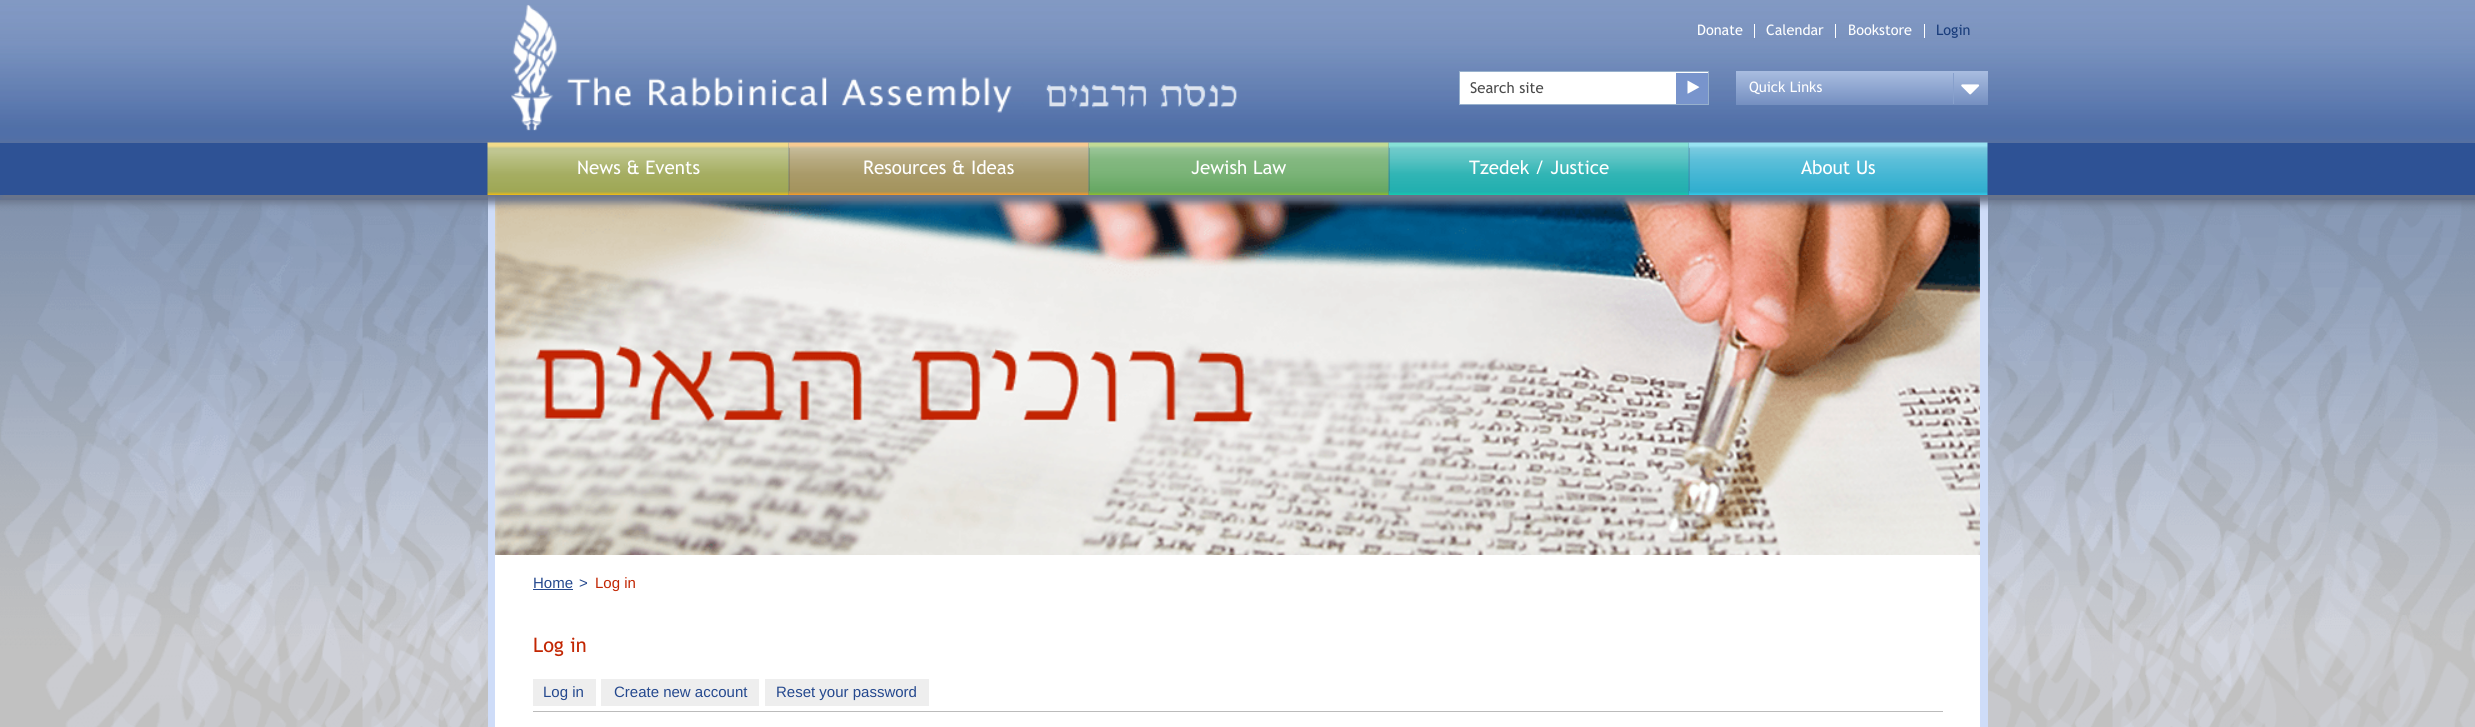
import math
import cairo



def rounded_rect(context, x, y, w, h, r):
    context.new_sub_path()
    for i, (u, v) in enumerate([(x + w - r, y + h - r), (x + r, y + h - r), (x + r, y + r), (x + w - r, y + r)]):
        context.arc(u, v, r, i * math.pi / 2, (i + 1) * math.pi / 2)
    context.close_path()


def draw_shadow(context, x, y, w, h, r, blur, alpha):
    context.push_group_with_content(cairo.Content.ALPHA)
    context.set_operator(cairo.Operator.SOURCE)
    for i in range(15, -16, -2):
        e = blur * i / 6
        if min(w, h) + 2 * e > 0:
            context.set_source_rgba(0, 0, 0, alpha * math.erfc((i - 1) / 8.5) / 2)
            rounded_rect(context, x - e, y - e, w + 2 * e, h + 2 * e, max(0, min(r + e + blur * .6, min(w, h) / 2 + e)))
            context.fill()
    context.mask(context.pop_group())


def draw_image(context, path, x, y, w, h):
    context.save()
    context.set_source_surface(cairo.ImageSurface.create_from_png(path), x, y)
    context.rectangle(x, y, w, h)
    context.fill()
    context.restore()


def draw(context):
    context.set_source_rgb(193 / 255, 193 / 255, 193 / 255)
    context.paint()
    draw_image(context, "images/1.png", 0, 200, 2475, 527)
    draw_image(context, "images/2.png", 0, 0, 2475, 200)
    draw_image(context, "images/3.png", 511, 4, 726, 127)
    context.set_source_rgb(1, 1, 1)
    context.rectangle(1754, 24, 1, 14)
    context.fill()
    context.rectangle(1835, 24, 1, 14)
    context.fill()
    context.rectangle(1924, 24, 1, 14)
    context.fill()
    context.rectangle(1459.5, 71.5, 249, 33)
    context.fill_preserve()
    context.set_source_rgb(152 / 255, 177 / 255, 205 / 255)
    context.set_line_width(1)
    context.stroke()
    context.set_source_rgb(120 / 255, 148 / 255, 204 / 255)
    context.rectangle(1676, 73, 32, 31)
    context.fill()
    draw_image(context, "images/4.png", 1687, 80, 13, 14)
    gradient = cairo.LinearGradient(1862, 71, 1862, 105)
    gradient.add_color_stop_rgba(0, 169 / 255, 189 / 255, 224 / 255, 1)
    gradient.add_color_stop_rgba(0.95, 119 / 255, 145 / 255, 194 / 255, 1)
    gradient.add_color_stop_rgba(1, 116 / 255, 143 / 255, 191 / 255, 1)
    context.set_source(gradient)
    context.rectangle(1736, 71, 252, 34)
    context.fill()
    context.set_source_rgb(135 / 255, 160 / 255, 204 / 255)
    context.rectangle(1953, 73, 1, 31)
    context.fill()
    draw_image(context, "images/5.png", 1961, 84, 19, 11)
    context.set_source_rgb(206 / 255, 220 / 255, 248 / 255)
    context.rectangle(1980, 195, 8, 360)
    context.fill()
    context.rectangle(488, 195, 7, 360)
    context.fill()
    draw_image(context, "images/11.png", 495, 195, 1485, 360)
    context.set_source_rgb(106 / 255, 116 / 255, 137 / 255)
    draw_shadow(context, -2, 145, 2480, 58, 0, 4, 1)
    context.set_source_rgb(46 / 255, 82 / 255, 149 / 255)
    context.rectangle(0, 143, 2475, 52)
    context.fill()
    draw_image(context, "images/6.png", 487, 142, 302, 53)
    draw_image(context, "images/7.png", 788, 142, 301, 53)
    context.set_source_rgba(51 / 255, 51 / 255, 51 / 255, 0.2)
    context.rectangle(789, 148, 1, 43)
    context.fill()
    draw_image(context, "images/8.png", 1088, 142, 301, 53)
    context.rectangle(1089, 148, 1, 43)
    context.fill()
    draw_image(context, "images/9.png", 1388, 142, 301, 53)
    context.rectangle(1389, 148, 1, 43)
    context.fill()
    draw_image(context, "images/10.png", 1688, 142, 300, 53)
    context.rectangle(1689, 148, 1, 43)
    context.fill()
    context.set_source_rgb(206 / 255, 220 / 255, 248 / 255)
    context.rectangle(1980, 555, 8, 172)
    context.fill()
    context.rectangle(488, 555, 7, 172)
    context.fill()
    context.set_source_rgb(1, 1, 1)
    context.rectangle(495, 555, 1485, 172)
    context.fill()
    context.set_source_rgb(36 / 255, 72 / 255, 142 / 255)
    context.rectangle(533, 589, 40, 1)
    context.fill()
    context.set_source_rgb(187 / 255, 187 / 255, 187 / 255)
    context.rectangle(533, 711, 1410, 1)
    context.fill()
    context.set_source_rgb(238 / 255, 238 / 255, 238 / 255)
    context.rectangle(533, 679, 63, 27)
    context.fill()
    context.rectangle(601, 679, 158, 27)
    context.fill()
    context.rectangle(765, 679, 164, 27)
    context.fill()
    context.select_font_face("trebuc")
    context.set_font_size(14.5)
    context.set_source_rgb(1, 1, 1)
    context.move_to(1697, 35)
    context.show_text("Donate")
    context.move_to(1766, 35)
    context.show_text("Calendar")
    context.move_to(1848, 35)
    context.show_text("Bookstore")
    context.set_source_rgb(25 / 255, 60 / 255, 123 / 255)
    context.move_to(1936, 35)
    context.show_text("Login")
    context.set_font_size(15)
    context.set_source_rgb(75 / 255, 75 / 255, 75 / 255)
    context.move_to(1470, 93)
    context.show_text("Search site")
    context.set_font_size(14.5)
    context.set_source_rgb(1, 1, 1)
    context.move_to(1749, 92)
    context.show_text("Quick Links")
    context.set_font_size(18.75)
    context.move_to(577, 174)
    context.show_text("News & Events")
    context.move_to(863, 174)
    context.show_text("Resources & Ideas")
    context.move_to(1191, 174)
    context.show_text("Jewish Law")
    context.move_to(1469, 174)
    context.show_text("Tzedek / Justice")
    context.move_to(1801, 174)
    context.show_text("About Us")
    context.select_font_face("Liberation Sans")
    context.set_font_size(15)
    context.set_source_rgb(36 / 255, 72 / 255, 142 / 255)
    context.move_to(533, 588)
    context.show_text("Home")
    context.move_to(579, 588)
    context.show_text(">")
    context.set_source_rgb(194 / 255, 38 / 255, 2 / 255)
    context.move_to(595, 588)
    context.show_text("Log in")
    context.select_font_face("trebuc")
    context.set_font_size(20)
    context.move_to(533, 652)
    context.show_text("Log in")
    context.select_font_face("Liberation Sans")
    context.set_font_size(15)
    context.set_source_rgb(36 / 255, 72 / 255, 142 / 255)
    context.move_to(543, 697)
    context.show_text("Log in")
    context.move_to(614, 697)
    context.show_text("Create new account")
    context.move_to(776, 697)
    context.show_text("Reset your password")


surface = cairo.ImageSurface(cairo.Format.RGB24, 2475, 727)
context = cairo.Context(surface)
options = cairo.FontOptions()
options.set_hint_metrics(cairo.HintMetrics.OFF)
options.set_hint_style(cairo.HintStyle.NONE)
context.set_font_options(options)
context.set_miter_limit(4)
draw(context)
surface.write_to_png("out.png")
